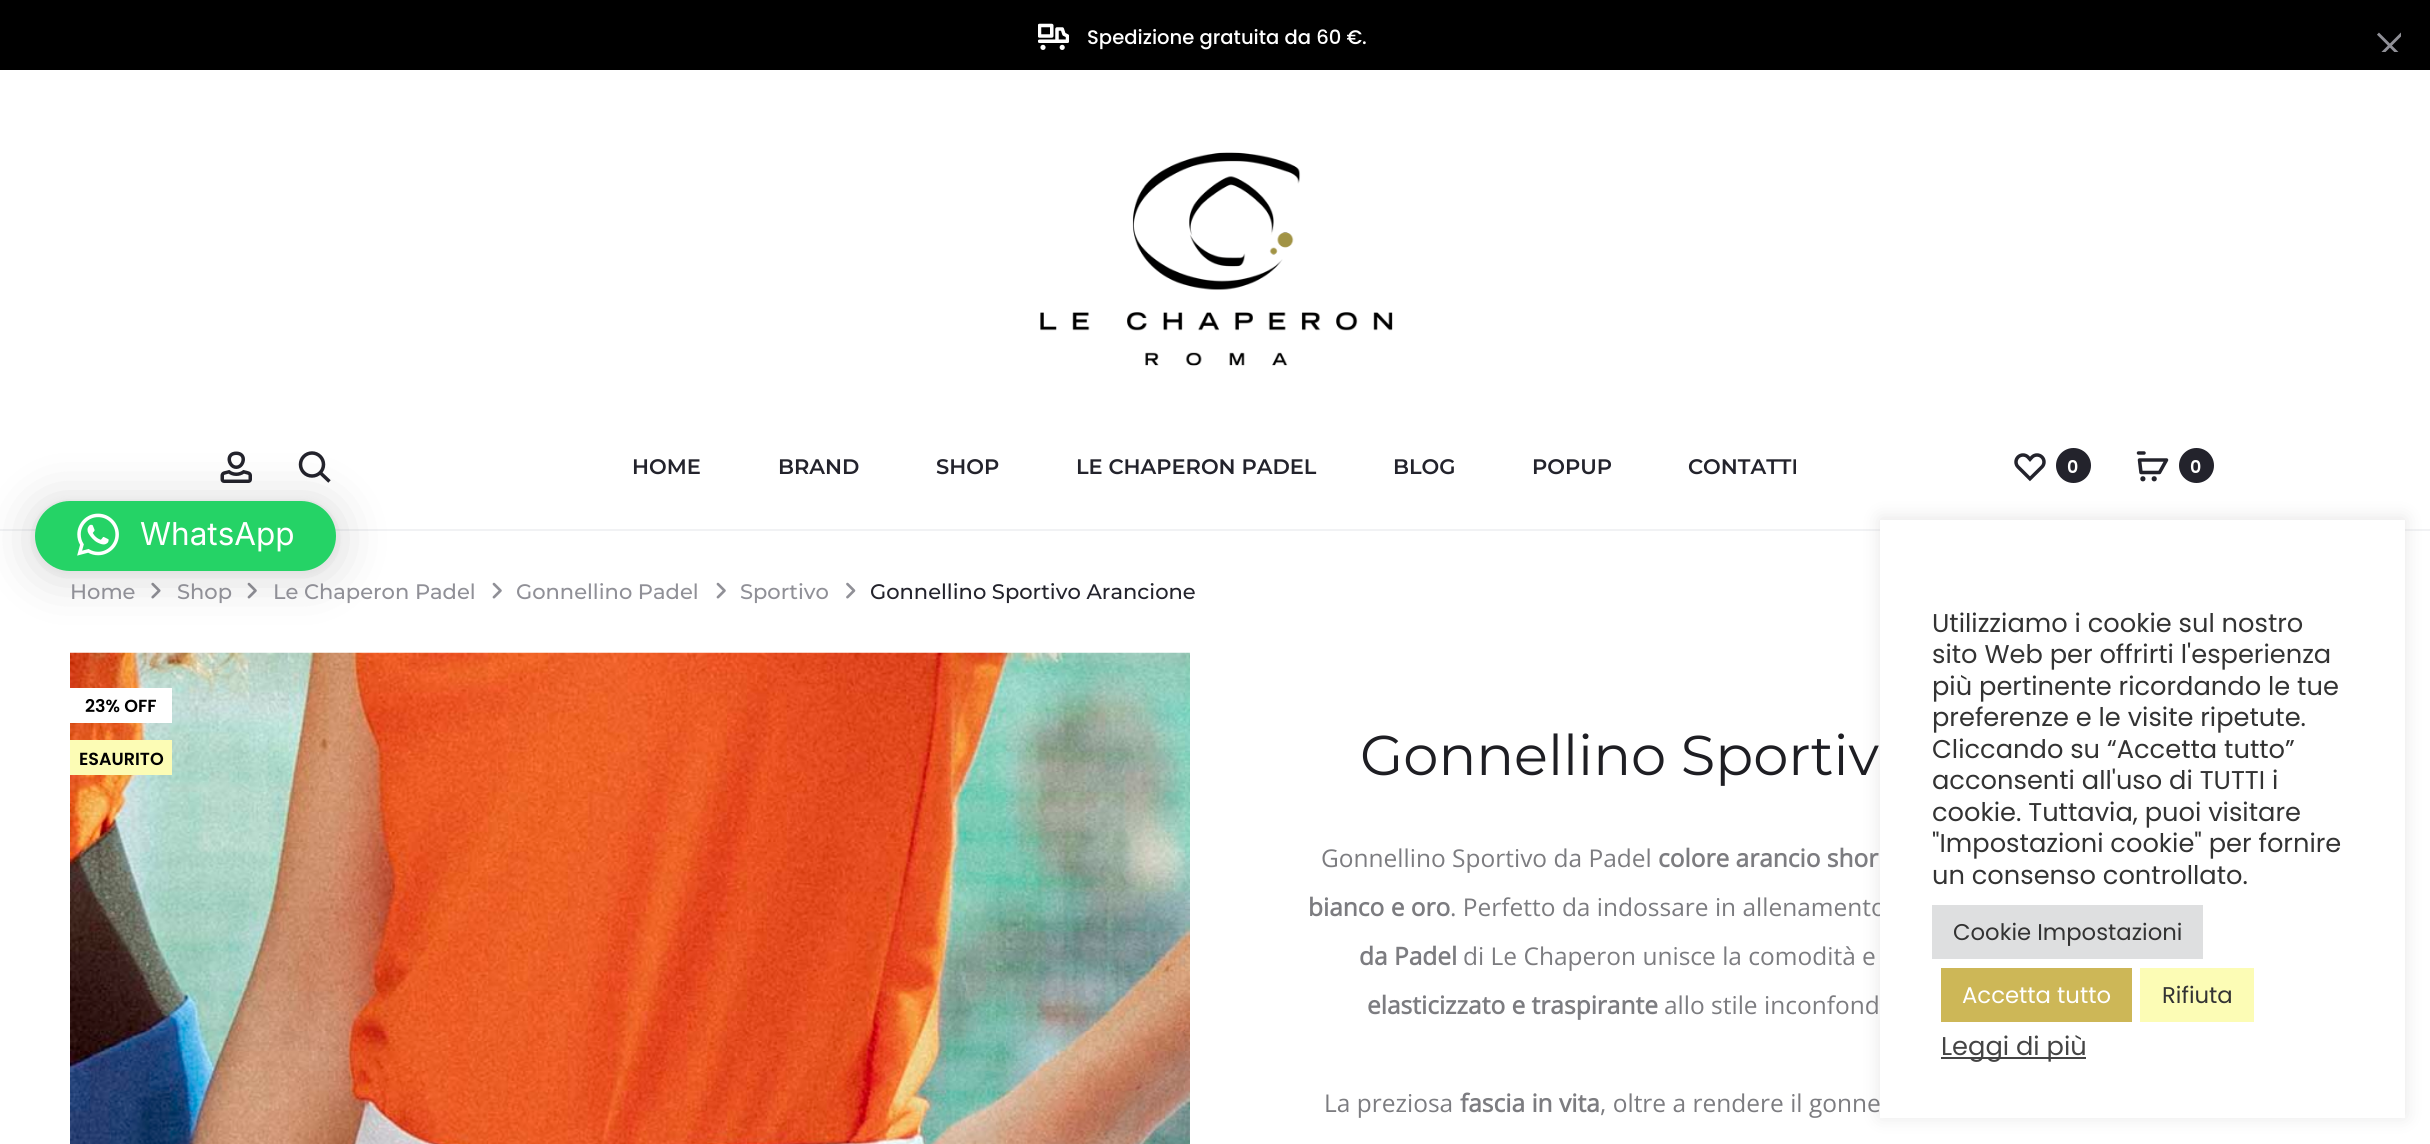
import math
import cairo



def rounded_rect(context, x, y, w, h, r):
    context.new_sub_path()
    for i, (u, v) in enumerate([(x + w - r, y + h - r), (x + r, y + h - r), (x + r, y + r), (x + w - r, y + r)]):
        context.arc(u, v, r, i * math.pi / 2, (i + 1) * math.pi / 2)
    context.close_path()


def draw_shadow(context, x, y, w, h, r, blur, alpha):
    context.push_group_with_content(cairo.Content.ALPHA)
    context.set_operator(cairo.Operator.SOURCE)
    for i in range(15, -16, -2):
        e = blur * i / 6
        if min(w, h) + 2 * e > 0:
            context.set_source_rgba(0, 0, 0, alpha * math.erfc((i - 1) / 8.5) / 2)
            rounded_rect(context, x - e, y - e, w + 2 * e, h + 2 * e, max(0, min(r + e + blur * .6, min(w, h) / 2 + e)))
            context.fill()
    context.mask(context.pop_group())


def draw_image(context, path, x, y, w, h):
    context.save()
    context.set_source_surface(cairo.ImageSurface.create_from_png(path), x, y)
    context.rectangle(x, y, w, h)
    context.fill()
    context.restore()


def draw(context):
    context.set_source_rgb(1, 1, 1)
    context.paint()
    context.set_source_rgb(0, 0, 0)
    context.rectangle(0, 0, 2430, 70)
    context.fill()
    draw_image(context, "images/1.png", 1038, 23, 31, 27)
    draw_image(context, "images/2.png", 2377, 32, 24, 20)
    context.set_source_rgb(241 / 255, 242 / 255, 244 / 255)
    context.rectangle(0, 529, 2430, 2)
    context.fill()
    draw_image(context, "images/3.png", 1040, 152, 353, 214)
    draw_image(context, "images/4.png", 220, 451, 32, 32)
    context.arc(312, 464.5, 11.5, 0, 2 * math.pi)
    context.set_source_rgb(35 / 255, 35 / 255, 44 / 255)
    context.set_line_width(3.5)
    context.stroke()
    context.new_path()
    context.move_to(320, 472.5)
    context.line_to(329.5, 481.5)
    context.stroke()
    draw_image(context, "images/5.png", 2014, 453, 32, 29)
    context.arc(2073.5, 465.5, 17.5, 0, 2 * math.pi)
    context.fill()
    context.new_path()
    context.move_to(2139.5, 460)
    context.line_to(2141, 472.5)
    context.line_to(2159.5, 472.5)
    context.line_to(2166.5, 460)
    context.close_path()
    context.set_line_join(cairo.LineJoin.ROUND)
    context.stroke()
    context.arc(2142.9, 478.8, 2.6, 0, 2 * math.pi)
    context.fill()
    context.arc(2154.2, 478.8, 2.6, 0, 2 * math.pi)
    context.fill()
    context.new_path()
    context.move_to(2138.5, 453)
    context.line_to(2144, 453)
    context.set_line_cap(cairo.LineCap.ROUND)
    context.set_line_join(cairo.LineJoin.MITER)
    context.stroke()
    context.arc(2196.5, 465.5, 17.5, 0, 2 * math.pi)
    context.fill()
    draw_image(context, "images/6.png", 151, 582, 10, 17)
    draw_image(context, "images/7.png", 247, 582, 10, 17)
    draw_image(context, "images/7.png", 492, 582, 10, 17)
    draw_image(context, "images/7.png", 716, 582, 10, 17)
    draw_image(context, "images/8.png", 846, 582, 10, 17)
    draw_image(context, "images/9.png", 70, 652, 1120, 492)
    context.set_source_rgb(1, 1, 1)
    context.rectangle(70, 688, 102, 35)
    context.fill()
    context.set_source_rgb(252 / 255, 252 / 255, 181 / 255)
    context.rectangle(70, 740, 102, 35)
    context.fill()
    context.set_source_rgb(0, 0, 0)
    draw_shadow(context, 35, 504, 301, 70, 35, 28, 0.16)
    draw_shadow(context, 35, 502, 301, 70, 35, 5, 0.06)
    context.set_source_rgb(37 / 255, 211 / 255, 102 / 255)
    rounded_rect(context, 35, 501, 301, 70, 35)
    context.fill()
    draw_image(context, "images/10.png", 77, 513, 42, 43)
    context.set_source_rgb(172 / 255, 171 / 255, 171 / 255)
    draw_shadow(context, 1880, 518, 525, 599, 0, 9, 0.3)
    context.select_font_face("Poppins Medium")
    context.set_font_size(19.6)
    context.set_source_rgb(1, 1, 1)
    context.move_to(1087, 44)
    context.show_text("Spedizione gratuita da 60 €.")
    context.select_font_face("Montserrat SemiBold")
    context.set_font_size(21)
    context.set_source_rgb(35 / 255, 35 / 255, 44 / 255)
    context.move_to(632, 474)
    context.show_text("HOME")
    context.move_to(778, 474)
    context.show_text("BRAND")
    context.move_to(936, 474)
    context.show_text("SHOP")
    context.move_to(1076, 474)
    context.show_text("LE CHAPERON PADEL")
    context.move_to(1393, 474)
    context.show_text("BLOG")
    context.move_to(1532, 474)
    context.show_text("POPUP")
    context.move_to(1688, 474)
    context.show_text("CONTATTI")
    context.select_font_face("Poppins SemiBold")
    context.set_font_size(17.5)
    context.set_source_rgb(1, 1, 1)
    context.move_to(2067, 473)
    context.show_text("0")
    context.move_to(2190, 473)
    context.show_text("0")
    context.select_font_face("Montserrat Medium")
    context.set_font_size(21)
    context.set_source_rgb(144 / 255, 144 / 255, 151 / 255)
    context.move_to(70, 599)
    context.show_text("Home")
    context.move_to(177, 599)
    context.show_text("Shop")
    context.move_to(273, 599)
    context.show_text("Le Chaperon Padel")
    context.move_to(516, 599)
    context.show_text("Gonnellino Padel")
    context.move_to(740, 599)
    context.show_text("Sportivo")
    context.set_source_rgb(35 / 255, 35 / 255, 44 / 255)
    context.move_to(870, 599)
    context.show_text("Gonnellino Sportivo Arancione")
    context.select_font_face("Poppins SemiBold")
    context.set_font_size(17.5)
    context.set_source_rgb(0, 0, 0)
    context.move_to(85, 712)
    context.show_text("23% OFF")
    context.move_to(79, 765)
    context.show_text("ESAURITO")
    context.select_font_face("Montserrat")
    context.set_font_size(56)
    context.set_source_rgb(30 / 255, 30 / 255, 35 / 255)
    context.move_to(1360, 775)
    context.show_text("Gonnellino Sportiv")
    context.select_font_face("Open Sans")
    context.set_font_size(24.5)
    context.set_source_rgb(124 / 255, 124 / 255, 128 / 255)
    context.move_to(1321, 867)
    context.show_text("Gonnellino Sportivo da Padel")
    context.select_font_face("Open Sans", cairo.FontSlant.NORMAL, cairo.FontWeight.BOLD)
    context.move_to(1658, 867)
    context.show_text("colore arancio shor")
    context.move_to(1308, 916)
    context.show_text("bianco e oro")
    context.select_font_face("Open Sans")
    context.move_to(1450, 916)
    context.show_text(". Perfetto da indossare in allenamento")
    context.select_font_face("Open Sans", cairo.FontSlant.NORMAL, cairo.FontWeight.BOLD)
    context.move_to(1359, 965)
    context.show_text("da Padel")
    context.select_font_face("Open Sans")
    context.move_to(1463, 965)
    context.show_text("di Le Chaperon unisce la comodità e")
    context.select_font_face("Open Sans", cairo.FontSlant.NORMAL, cairo.FontWeight.BOLD)
    context.move_to(1367, 1014)
    context.show_text("elasticizzato e traspirante")
    context.select_font_face("Open Sans")
    context.move_to(1664, 1014)
    context.show_text("allo stile inconfond")
    context.move_to(1324, 1112)
    context.show_text("La preziosa")
    context.select_font_face("Open Sans", cairo.FontSlant.NORMAL, cairo.FontWeight.BOLD)
    context.move_to(1460, 1112)
    context.show_text("fascia in vita")
    context.select_font_face("Open Sans")
    context.move_to(1600, 1112)
    context.show_text(", oltre a rendere il gonne")
    context.select_font_face("Inter")
    context.set_font_size(31.5)
    context.set_source_rgb(1, 1, 1)
    context.move_to(140, 545)
    context.show_text("WhatsApp")
    context.rectangle(1880, 520, 525, 598)
    context.fill()
    context.select_font_face("Poppins")
    context.set_font_size(25.7)
    context.set_source_rgb(51 / 255, 51 / 255, 51 / 255)
    context.move_to(1932, 632)
    context.show_text("Utilizziamo i cookie sul nostro")
    context.move_to(1932, 663)
    context.show_text("sito Web per offrirti l'esperienza")
    context.move_to(1932, 695)
    context.show_text("più pertinente ricordando le tue")
    context.move_to(1932, 726)
    context.show_text("preferenze e le visite ripetute.")
    context.move_to(1932, 758)
    context.show_text("Cliccando su “Accetta tutto”")
    context.move_to(1932, 789)
    context.show_text("acconsenti all'uso di TUTTI i")
    context.move_to(1932, 821)
    context.show_text("cookie. Tuttavia, puoi visitare")
    context.move_to(1932, 852)
    context.show_text("\"Impostazioni cookie\" per fornire")
    context.move_to(1932, 884)
    context.show_text("un consenso controllato.")
    context.set_source_rgb(222 / 255, 223 / 255, 224 / 255)
    context.rectangle(1932, 905, 271, 54)
    context.fill()
    context.set_font_size(22.75)
    context.set_source_rgb(51 / 255, 51 / 255, 51 / 255)
    context.move_to(1953, 940)
    context.show_text("Cookie Impostazioni")
    context.set_source_rgb(205 / 255, 183 / 255, 87 / 255)
    context.rectangle(1941, 968, 191, 54)
    context.fill()
    context.set_source_rgb(1, 1, 1)
    context.move_to(1962, 1003)
    context.show_text("Accetta tutto")
    context.set_source_rgb(252 / 255, 252 / 255, 181 / 255)
    context.rectangle(2140, 968, 114, 54)
    context.fill()
    context.set_source_rgb(51 / 255, 51 / 255, 51 / 255)
    context.move_to(2162, 1003)
    context.show_text("Rifiuta")
    context.set_source_rgb(68 / 255, 68 / 255, 68 / 255)
    context.rectangle(1941, 1057, 145, 2)
    context.fill()
    context.set_font_size(25.7)
    context.move_to(1941, 1055)
    context.show_text("Leggi di più")


surface = cairo.ImageSurface(cairo.Format.RGB24, 2430, 1144)
context = cairo.Context(surface)
options = cairo.FontOptions()
options.set_hint_metrics(cairo.HintMetrics.OFF)
options.set_hint_style(cairo.HintStyle.NONE)
context.set_font_options(options)
context.set_miter_limit(4)
draw(context)
surface.write_to_png("out.png")
